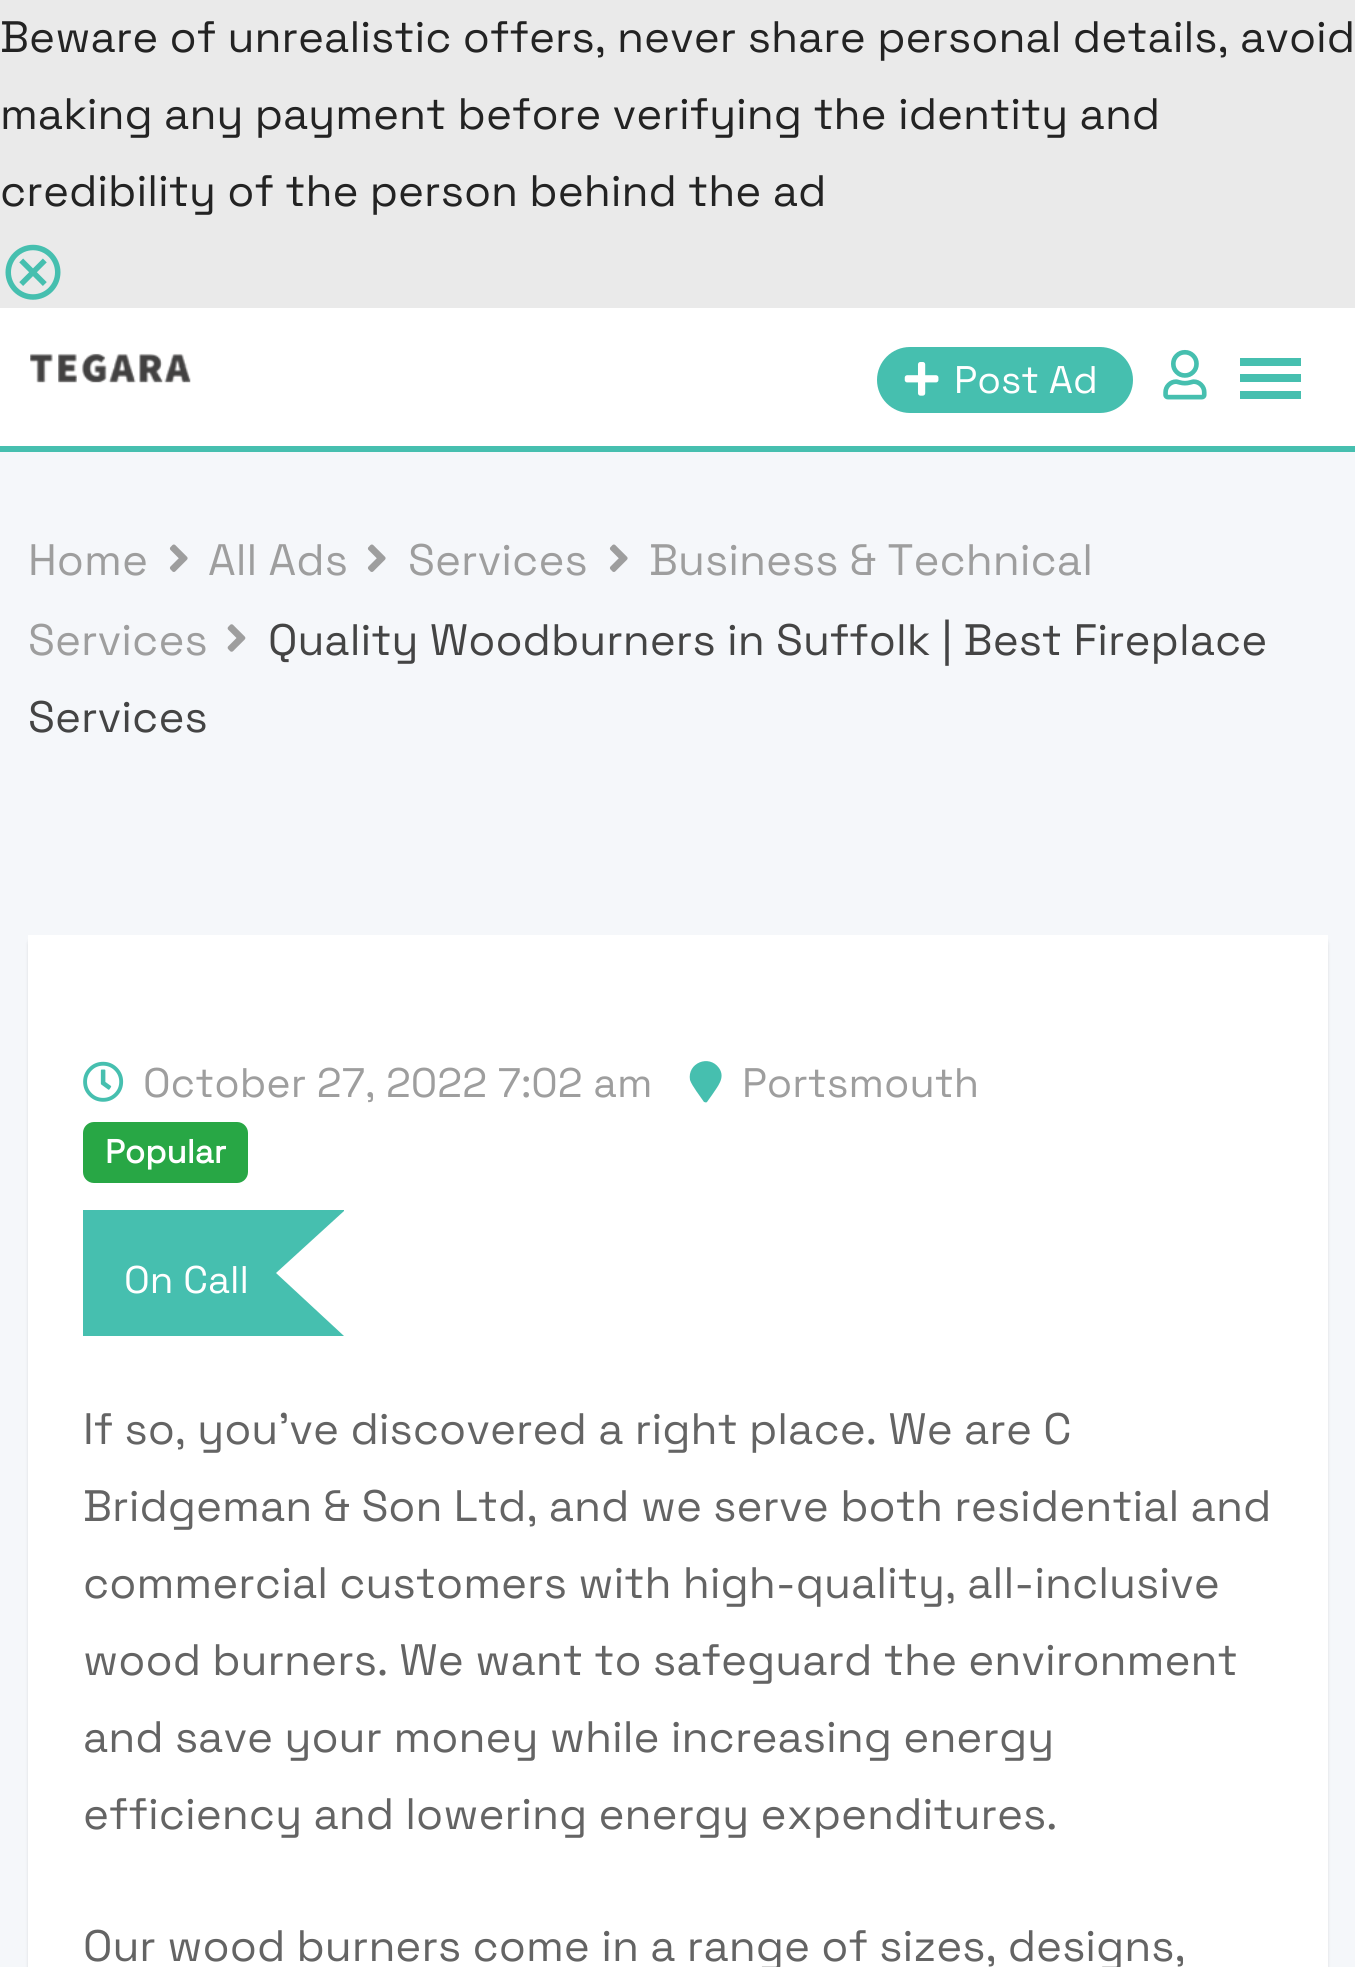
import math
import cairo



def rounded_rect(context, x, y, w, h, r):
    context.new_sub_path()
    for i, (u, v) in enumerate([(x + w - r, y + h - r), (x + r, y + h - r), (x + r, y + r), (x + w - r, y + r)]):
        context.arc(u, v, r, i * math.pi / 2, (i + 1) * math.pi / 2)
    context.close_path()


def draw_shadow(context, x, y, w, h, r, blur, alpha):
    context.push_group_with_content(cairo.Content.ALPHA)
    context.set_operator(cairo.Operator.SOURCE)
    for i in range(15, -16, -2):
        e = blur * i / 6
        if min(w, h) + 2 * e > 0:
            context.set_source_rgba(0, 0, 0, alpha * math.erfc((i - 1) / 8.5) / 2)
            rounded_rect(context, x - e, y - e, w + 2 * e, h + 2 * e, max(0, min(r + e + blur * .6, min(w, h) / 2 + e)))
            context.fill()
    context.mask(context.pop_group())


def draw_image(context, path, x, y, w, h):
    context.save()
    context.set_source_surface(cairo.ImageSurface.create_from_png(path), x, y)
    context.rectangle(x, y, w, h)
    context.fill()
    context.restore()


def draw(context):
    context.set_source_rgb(1, 1, 1)
    context.paint()
    context.set_source_rgb(234 / 255, 234 / 255, 234 / 255)
    context.rectangle(0, 0, 1355, 308)
    context.fill()
    draw_image(context, "images/1.png", 5, 244, 56, 56)
    context.set_source_rgb(70 / 255, 191 / 255, 175 / 255)
    context.rectangle(0, 446, 1355, 6)
    context.fill()
    draw_image(context, "images/2.png", 30, 353, 161, 30)
    rounded_rect(context, 877, 347, 256, 66, 33)
    context.fill()
    draw_image(context, "images/3.png", 904, 362, 35, 34)
    draw_image(context, "images/4.png", 1163, 349, 44, 51)
    context.rectangle(1240, 358, 61, 8)
    context.fill()
    context.rectangle(1240, 374, 61, 8)
    context.fill()
    context.rectangle(1240, 391, 61, 8)
    context.fill()
    context.set_source_rgb(245 / 255, 247 / 255, 250 / 255)
    context.rectangle(0, 452, 1355, 1515)
    context.fill()
    draw_image(context, "images/5.png", 169, 544, 19, 28)
    draw_image(context, "images/5.png", 367, 544, 19, 28)
    draw_image(context, "images/5.png", 609, 544, 19, 28)
    draw_image(context, "images/6.png", 227, 624, 19, 28)
    context.set_source_rgb(0, 0, 0)
    draw_shadow(context, 28, 938, 1300, 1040, 6, 1.5, 0.1)
    context.set_source_rgb(1, 1, 1)
    context.rectangle(28, 935, 1300, 1032)
    context.fill()
    draw_image(context, "images/7.png", 83, 1061, 41, 41)
    context.set_source_rgb(70 / 255, 191 / 255, 175 / 255)
    context.new_path()
    context.move_to(704, 1102)
    context.curve_to(700, 1096, 692, 1086, 690, 1080)
    context.curve_to(687, 1063, 709, 1054, 719, 1068)
    context.curve_to(726, 1078, 717, 1087, 712, 1095)
    context.line_to(707, 1102)
    context.curve_to(706, 1103, 705, 1102, 704, 1102)
    context.close_path()
    context.fill()
    context.set_source_rgb(40 / 255, 167 / 255, 69 / 255)
    rounded_rect(context, 83, 1122, 165, 61, 11)
    context.fill()
    context.set_source_rgb(70 / 255, 191 / 255, 175 / 255)
    context.new_path()
    context.move_to(83, 1210)
    context.line_to(344, 1210)
    context.line_to(344, 1211)
    context.line_to(276, 1273)
    context.line_to(344, 1336)
    context.line_to(83, 1336)
    context.close_path()
    context.fill()
    context.select_font_face("Space Grotesk")
    context.set_font_size(44)
    context.set_source_rgb(35 / 255, 35 / 255, 35 / 255)
    context.move_to(0, 52)
    context.show_text("Beware of unrealistic offers, never share personal details, avoid")
    context.move_to(0, 129)
    context.show_text("making any payment before verifying the identity and")
    context.move_to(0, 206)
    context.show_text("credibility of the person behind the ad")
    context.set_font_size(38.5)
    context.set_source_rgb(1, 1, 1)
    context.move_to(954, 393)
    context.show_text("Post Ad")
    context.set_font_size(44)
    context.set_source_rgb(158 / 255, 158 / 255, 158 / 255)
    context.move_to(28, 575)
    context.show_text("Home")
    context.move_to(208, 575)
    context.show_text("All Ads")
    context.move_to(408, 575)
    context.show_text("Services")
    context.move_to(649, 575)
    context.show_text("Business & Technical")
    context.move_to(28, 655)
    context.show_text("Services")
    context.set_source_rgb(68 / 255, 68 / 255, 68 / 255)
    context.move_to(268, 655)
    context.show_text("Quality Woodburners in Suffolk | Best Fireplace")
    context.move_to(28, 732)
    context.show_text("Services")
    context.set_font_size(41.25)
    context.set_source_rgb(158 / 255, 158 / 255, 158 / 255)
    context.move_to(143, 1097)
    context.show_text("October 27, 2022 7:02 am")
    context.move_to(742, 1097)
    context.show_text("Portsmouth")
    context.select_font_face("Space Grotesk", cairo.FontSlant.NORMAL, cairo.FontWeight.BOLD)
    context.set_font_size(33)
    context.set_source_rgb(1, 1, 1)
    context.move_to(105, 1163)
    context.show_text("Popular")
    context.select_font_face("Space Grotesk")
    context.set_font_size(38.5)
    context.move_to(124, 1293)
    context.show_text("On Call")
    context.set_font_size(44)
    context.set_source_rgb(100 / 255, 100 / 255, 100 / 255)
    context.move_to(83, 1444)
    context.show_text("If so, you’ve discovered a right place. We are C")
    context.move_to(83, 1521)
    context.show_text("Bridgeman & Son Ltd, and we serve both residential and")
    context.move_to(83, 1598)
    context.show_text("commercial customers with high-quality, all-inclusive")
    context.move_to(83, 1675)
    context.show_text("wood burners. We want to safeguard the environment")
    context.move_to(83, 1752)
    context.show_text("and save your money while increasing energy")
    context.move_to(83, 1829)
    context.show_text("efficiency and lowering energy expenditures.")
    context.move_to(83, 1961)
    context.show_text("Our wood burners come in a range of sizes, designs,")


surface = cairo.ImageSurface(cairo.Format.RGB24, 1355, 1967)
context = cairo.Context(surface)
options = cairo.FontOptions()
options.set_hint_metrics(cairo.HintMetrics.OFF)
options.set_hint_style(cairo.HintStyle.NONE)
context.set_font_options(options)
context.set_miter_limit(4)
draw(context)
surface.write_to_png("out.png")
